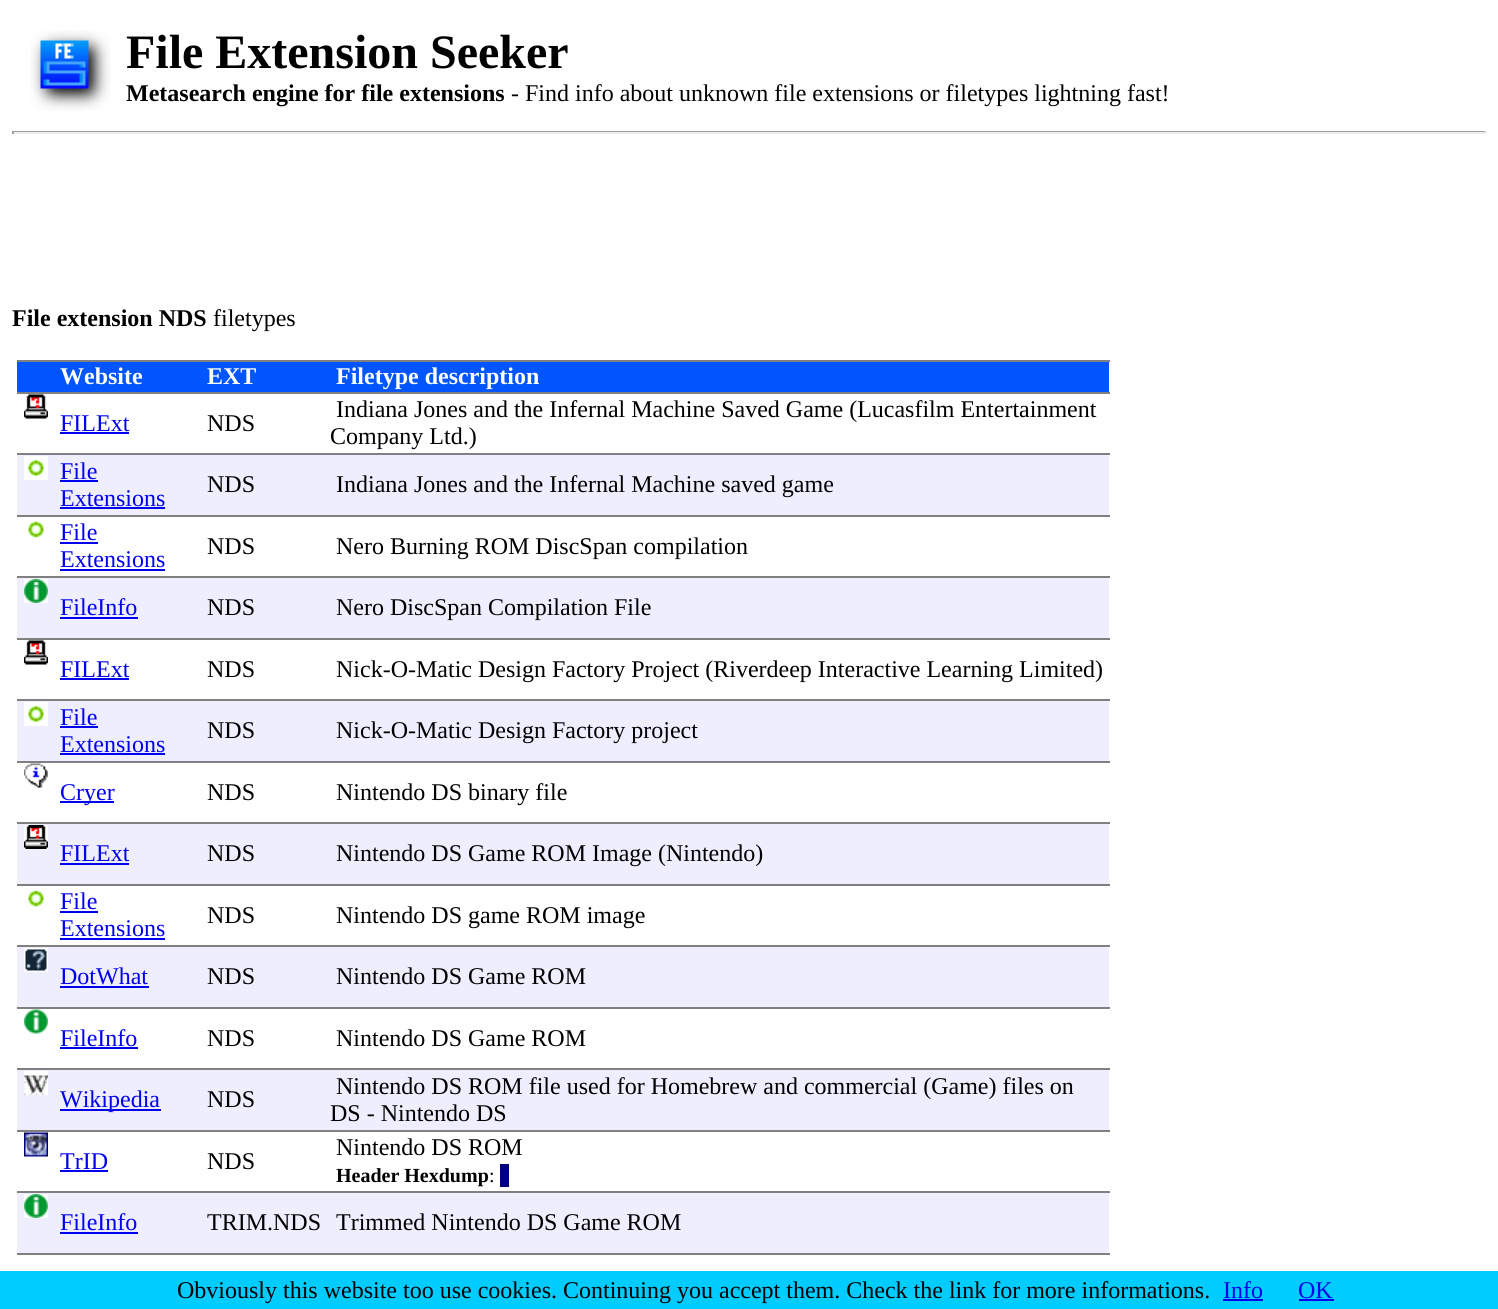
import math
import cairo



def draw_image(context, path, x, y, w, h):
    context.save()
    context.set_source_surface(cairo.ImageSurface.create_from_png(path), x, y)
    context.rectangle(x, y, w, h)
    context.fill()
    context.restore()


def draw(context):
    context.set_source_rgb(1, 1, 1)
    context.paint()
    draw_image(context, "images/1.png", 30, 30, 81, 81)
    context.set_source_rgb(159 / 255, 159 / 255, 159 / 255)
    context.rectangle(12, 131, 1475, 1)
    context.fill()
    context.set_source_rgb(238 / 255, 238 / 255, 238 / 255)
    context.rectangle(1485, 131, 2, 3)
    context.fill()
    context.rectangle(12, 132, 1475, 2)
    context.fill()
    context.set_source_rgb(159 / 255, 159 / 255, 159 / 255)
    context.rectangle(12, 131, 2, 3)
    context.fill()
    context.set_source_rgb(128 / 255, 128 / 255, 128 / 255)
    context.rectangle(17, 360, 1093, 2)
    context.fill()
    context.rectangle(17, 1253, 1093, 2)
    context.fill()
    context.set_source_rgb(0, 85 / 255, 1)
    context.rectangle(17, 362, 1092, 30)
    context.fill()
    draw_image(context, "images/2.png", 24, 394, 24, 25)
    context.set_source_rgb(0, 0, 238 / 255)
    context.rectangle(60, 432, 69, 2)
    context.fill()
    context.set_source_rgb(128 / 255, 128 / 255, 128 / 255)
    context.rectangle(17, 392, 1093, 2)
    context.fill()
    context.set_source_rgb(238 / 255, 238 / 255, 1)
    context.rectangle(17, 455, 1092, 60)
    context.fill()
    draw_image(context, "images/3.png", 24, 456, 24, 24)
    context.set_source_rgb(0, 0, 238 / 255)
    context.rectangle(60, 480, 38, 2)
    context.fill()
    context.rectangle(60, 507, 105, 2)
    context.fill()
    context.set_source_rgb(128 / 255, 128 / 255, 128 / 255)
    context.rectangle(17, 453, 1093, 2)
    context.fill()
    draw_image(context, "images/4.png", 28, 521, 16, 17)
    context.set_source_rgb(0, 0, 238 / 255)
    context.rectangle(60, 542, 38, 2)
    context.fill()
    context.rectangle(60, 569, 105, 2)
    context.fill()
    context.set_source_rgb(128 / 255, 128 / 255, 128 / 255)
    context.rectangle(17, 515, 1093, 2)
    context.fill()
    context.set_source_rgb(238 / 255, 238 / 255, 1)
    context.rectangle(17, 578, 1092, 60)
    context.fill()
    draw_image(context, "images/5.png", 24, 579, 24, 24)
    context.set_source_rgb(0, 0, 238 / 255)
    context.rectangle(60, 617, 78, 2)
    context.fill()
    context.set_source_rgb(128 / 255, 128 / 255, 128 / 255)
    context.rectangle(17, 576, 1093, 2)
    context.fill()
    draw_image(context, "images/2.png", 24, 640, 24, 25)
    context.set_source_rgb(0, 0, 238 / 255)
    context.rectangle(60, 678, 69, 2)
    context.fill()
    context.set_source_rgb(128 / 255, 128 / 255, 128 / 255)
    context.rectangle(17, 638, 1093, 2)
    context.fill()
    context.set_source_rgb(238 / 255, 238 / 255, 1)
    context.rectangle(17, 701, 1092, 60)
    context.fill()
    draw_image(context, "images/3.png", 24, 702, 24, 24)
    context.set_source_rgb(0, 0, 238 / 255)
    context.rectangle(60, 726, 38, 2)
    context.fill()
    context.rectangle(60, 753, 105, 2)
    context.fill()
    context.set_source_rgb(128 / 255, 128 / 255, 128 / 255)
    context.rectangle(17, 699, 1093, 2)
    context.fill()
    draw_image(context, "images/6.png", 24, 763, 24, 25)
    context.set_source_rgb(0, 0, 238 / 255)
    context.rectangle(60, 801, 54, 2)
    context.fill()
    context.set_source_rgb(128 / 255, 128 / 255, 128 / 255)
    context.rectangle(17, 761, 1093, 2)
    context.fill()
    context.set_source_rgb(238 / 255, 238 / 255, 1)
    context.rectangle(17, 824, 1092, 60)
    context.fill()
    draw_image(context, "images/7.png", 24, 825, 24, 24)
    context.set_source_rgb(0, 0, 238 / 255)
    context.rectangle(60, 863, 69, 2)
    context.fill()
    context.set_source_rgb(128 / 255, 128 / 255, 128 / 255)
    context.rectangle(17, 822, 1093, 2)
    context.fill()
    draw_image(context, "images/4.png", 28, 890, 16, 17)
    context.set_source_rgb(0, 0, 238 / 255)
    context.rectangle(60, 911, 38, 2)
    context.fill()
    context.rectangle(60, 938, 105, 2)
    context.fill()
    context.set_source_rgb(128 / 255, 128 / 255, 128 / 255)
    context.rectangle(17, 884, 1093, 2)
    context.fill()
    context.set_source_rgb(238 / 255, 238 / 255, 1)
    context.rectangle(17, 947, 1092, 60)
    context.fill()
    draw_image(context, "images/8.png", 24, 948, 24, 24)
    context.set_source_rgb(0, 0, 238 / 255)
    context.rectangle(60, 986, 89, 2)
    context.fill()
    context.set_source_rgb(128 / 255, 128 / 255, 128 / 255)
    context.rectangle(17, 945, 1093, 2)
    context.fill()
    draw_image(context, "images/9.png", 24, 1009, 24, 25)
    context.set_source_rgb(0, 0, 238 / 255)
    context.rectangle(60, 1047, 78, 2)
    context.fill()
    context.set_source_rgb(128 / 255, 128 / 255, 128 / 255)
    context.rectangle(17, 1007, 1093, 2)
    context.fill()
    context.set_source_rgb(238 / 255, 238 / 255, 1)
    context.rectangle(17, 1070, 1092, 60)
    context.fill()
    draw_image(context, "images/10.png", 24, 1071, 24, 24)
    context.set_source_rgb(0, 0, 238 / 255)
    context.rectangle(60, 1109, 101, 2)
    context.fill()
    context.set_source_rgb(128 / 255, 128 / 255, 128 / 255)
    context.rectangle(17, 1068, 1093, 2)
    context.fill()
    draw_image(context, "images/11.png", 24, 1132, 24, 25)
    context.set_source_rgb(0, 0, 238 / 255)
    context.rectangle(60, 1170, 48, 2)
    context.fill()
    context.set_source_rgb(128 / 255, 128 / 255, 128 / 255)
    context.rectangle(17, 1130, 1093, 2)
    context.fill()
    context.set_source_rgb(0, 0, 128 / 255)
    context.rectangle(500, 1164, 9, 23)
    context.fill()
    context.set_source_rgb(238 / 255, 238 / 255, 1)
    context.rectangle(17, 1193, 1092, 60)
    context.fill()
    draw_image(context, "images/5.png", 24, 1194, 24, 24)
    context.set_source_rgb(0, 0, 238 / 255)
    context.rectangle(60, 1232, 78, 2)
    context.fill()
    context.set_source_rgb(128 / 255, 128 / 255, 128 / 255)
    context.rectangle(17, 1191, 1093, 2)
    context.fill()
    context.set_source_rgb(0, 204 / 255, 1)
    context.rectangle(0, 1271, 1498, 38)
    context.fill()
    context.set_source_rgb(0, 0, 238 / 255)
    context.rectangle(1223, 1299, 40, 2)
    context.fill()
    context.rectangle(1299, 1299, 35, 2)
    context.fill()
    context.select_font_face("Liberation Serif", cairo.FontSlant.NORMAL, cairo.FontWeight.BOLD)
    context.set_font_size(48)
    context.set_source_rgb(0, 0, 0)
    context.move_to(126, 68)
    context.show_text("File Extension Seeker")
    context.set_font_size(24)
    context.move_to(126, 101)
    context.show_text("Metasearch engine for file extensions")
    context.select_font_face("Liberation Serif")
    context.move_to(511, 101)
    context.show_text("- Find info about unknown file extensions or filetypes lightning fast!")
    context.select_font_face("Liberation Serif", cairo.FontSlant.NORMAL, cairo.FontWeight.BOLD)
    context.move_to(12, 326)
    context.show_text("File extension NDS")
    context.select_font_face("Liberation Serif")
    context.move_to(213, 326)
    context.show_text("filetypes")
    context.select_font_face("Liberation Serif", cairo.FontSlant.NORMAL, cairo.FontWeight.BOLD)
    context.set_source_rgb(1, 1, 1)
    context.move_to(60, 384)
    context.show_text("Website")
    context.move_to(207, 384)
    context.show_text("EXT")
    context.move_to(336, 384)
    context.show_text("Filetype description")
    context.select_font_face("Liberation Serif")
    context.set_source_rgb(0, 0, 238 / 255)
    context.move_to(60, 431)
    context.show_text("FILExt")
    context.set_source_rgb(0, 0, 0)
    context.move_to(207, 431)
    context.show_text("NDS")
    context.move_to(336, 417)
    context.show_text("Indiana Jones and the Infernal Machine Saved Game (Lucasfilm Entertainment")
    context.move_to(330, 444)
    context.show_text("Company Ltd.)")
    context.set_source_rgb(0, 0, 238 / 255)
    context.move_to(60, 479)
    context.show_text("File")
    context.move_to(60, 506)
    context.show_text("Extensions")
    context.set_source_rgb(0, 0, 0)
    context.move_to(207, 492)
    context.show_text("NDS")
    context.move_to(336, 492)
    context.show_text("Indiana Jones and the Infernal Machine saved game")
    context.set_source_rgb(0, 0, 238 / 255)
    context.move_to(60, 540)
    context.show_text("File")
    context.move_to(60, 567)
    context.show_text("Extensions")
    context.set_source_rgb(0, 0, 0)
    context.move_to(207, 554)
    context.show_text("NDS")
    context.move_to(336, 554)
    context.show_text("Nero Burning ROM DiscSpan compilation")
    context.set_source_rgb(0, 0, 238 / 255)
    context.move_to(60, 615)
    context.show_text("FileInfo")
    context.set_source_rgb(0, 0, 0)
    context.move_to(207, 615)
    context.show_text("NDS")
    context.move_to(336, 615)
    context.show_text("Nero DiscSpan Compilation File")
    context.set_source_rgb(0, 0, 238 / 255)
    context.move_to(60, 677)
    context.show_text("FILExt")
    context.set_source_rgb(0, 0, 0)
    context.move_to(207, 677)
    context.show_text("NDS")
    context.move_to(336, 677)
    context.show_text("Nick-O-Matic Design Factory Project (Riverdeep Interactive Learning Limited)")
    context.set_source_rgb(0, 0, 238 / 255)
    context.move_to(60, 725)
    context.show_text("File")
    context.move_to(60, 752)
    context.show_text("Extensions")
    context.set_source_rgb(0, 0, 0)
    context.move_to(207, 738)
    context.show_text("NDS")
    context.move_to(336, 738)
    context.show_text("Nick-O-Matic Design Factory project")
    context.set_source_rgb(0, 0, 238 / 255)
    context.move_to(60, 800)
    context.show_text("Cryer")
    context.set_source_rgb(0, 0, 0)
    context.move_to(207, 800)
    context.show_text("NDS")
    context.move_to(336, 800)
    context.show_text("Nintendo DS binary file")
    context.set_source_rgb(0, 0, 238 / 255)
    context.move_to(60, 861)
    context.show_text("FILExt")
    context.set_source_rgb(0, 0, 0)
    context.move_to(207, 861)
    context.show_text("NDS")
    context.move_to(336, 861)
    context.show_text("Nintendo DS Game ROM Image (Nintendo)")
    context.set_source_rgb(0, 0, 238 / 255)
    context.move_to(60, 909)
    context.show_text("File")
    context.move_to(60, 936)
    context.show_text("Extensions")
    context.set_source_rgb(0, 0, 0)
    context.move_to(207, 923)
    context.show_text("NDS")
    context.move_to(336, 923)
    context.show_text("Nintendo DS game ROM image")
    context.set_source_rgb(0, 0, 238 / 255)
    context.move_to(60, 984)
    context.show_text("DotWhat")
    context.set_source_rgb(0, 0, 0)
    context.move_to(207, 984)
    context.show_text("NDS")
    context.move_to(336, 984)
    context.show_text("Nintendo DS Game ROM")
    context.set_source_rgb(0, 0, 238 / 255)
    context.move_to(60, 1046)
    context.show_text("FileInfo")
    context.set_source_rgb(0, 0, 0)
    context.move_to(207, 1046)
    context.show_text("NDS")
    context.move_to(336, 1046)
    context.show_text("Nintendo DS Game ROM")
    context.set_source_rgb(0, 0, 238 / 255)
    context.move_to(60, 1107)
    context.show_text("Wikipedia")
    context.set_source_rgb(0, 0, 0)
    context.move_to(207, 1107)
    context.show_text("NDS")
    context.move_to(336, 1094)
    context.show_text("Nintendo DS ROM file used for Homebrew and commercial (Game) files on")
    context.move_to(330, 1121)
    context.show_text("DS - Nintendo DS")
    context.set_source_rgb(0, 0, 238 / 255)
    context.move_to(60, 1169)
    context.show_text("TrID")
    context.set_source_rgb(0, 0, 0)
    context.move_to(207, 1169)
    context.show_text("NDS")
    context.move_to(336, 1155)
    context.show_text("Nintendo DS ROM")
    context.select_font_face("Liberation Serif", cairo.FontSlant.NORMAL, cairo.FontWeight.BOLD)
    context.set_font_size(20)
    context.move_to(336, 1182)
    context.show_text("Header Hexdump")
    context.select_font_face("Liberation Serif")
    context.move_to(489, 1182)
    context.show_text(":")
    context.set_font_size(24)
    context.set_source_rgb(0, 0, 238 / 255)
    context.move_to(60, 1230)
    context.show_text("FileInfo")
    context.set_source_rgb(0, 0, 0)
    context.move_to(207, 1230)
    context.show_text("TRIM.NDS")
    context.move_to(336, 1230)
    context.show_text("Trimmed Nintendo DS Game ROM")
    context.move_to(177, 1298)
    context.show_text("Obviously this website too use cookies. Continuing you accept them. Check the link for more informations.")
    context.set_source_rgb(0, 0, 238 / 255)
    context.move_to(1223, 1298)
    context.show_text("Info")
    context.move_to(1298, 1298)
    context.show_text("OK")


surface = cairo.ImageSurface(cairo.Format.RGB24, 1498, 1309)
context = cairo.Context(surface)
options = cairo.FontOptions()
options.set_hint_metrics(cairo.HintMetrics.OFF)
options.set_hint_style(cairo.HintStyle.NONE)
context.set_font_options(options)
context.set_miter_limit(4)
draw(context)
surface.write_to_png("out.png")
